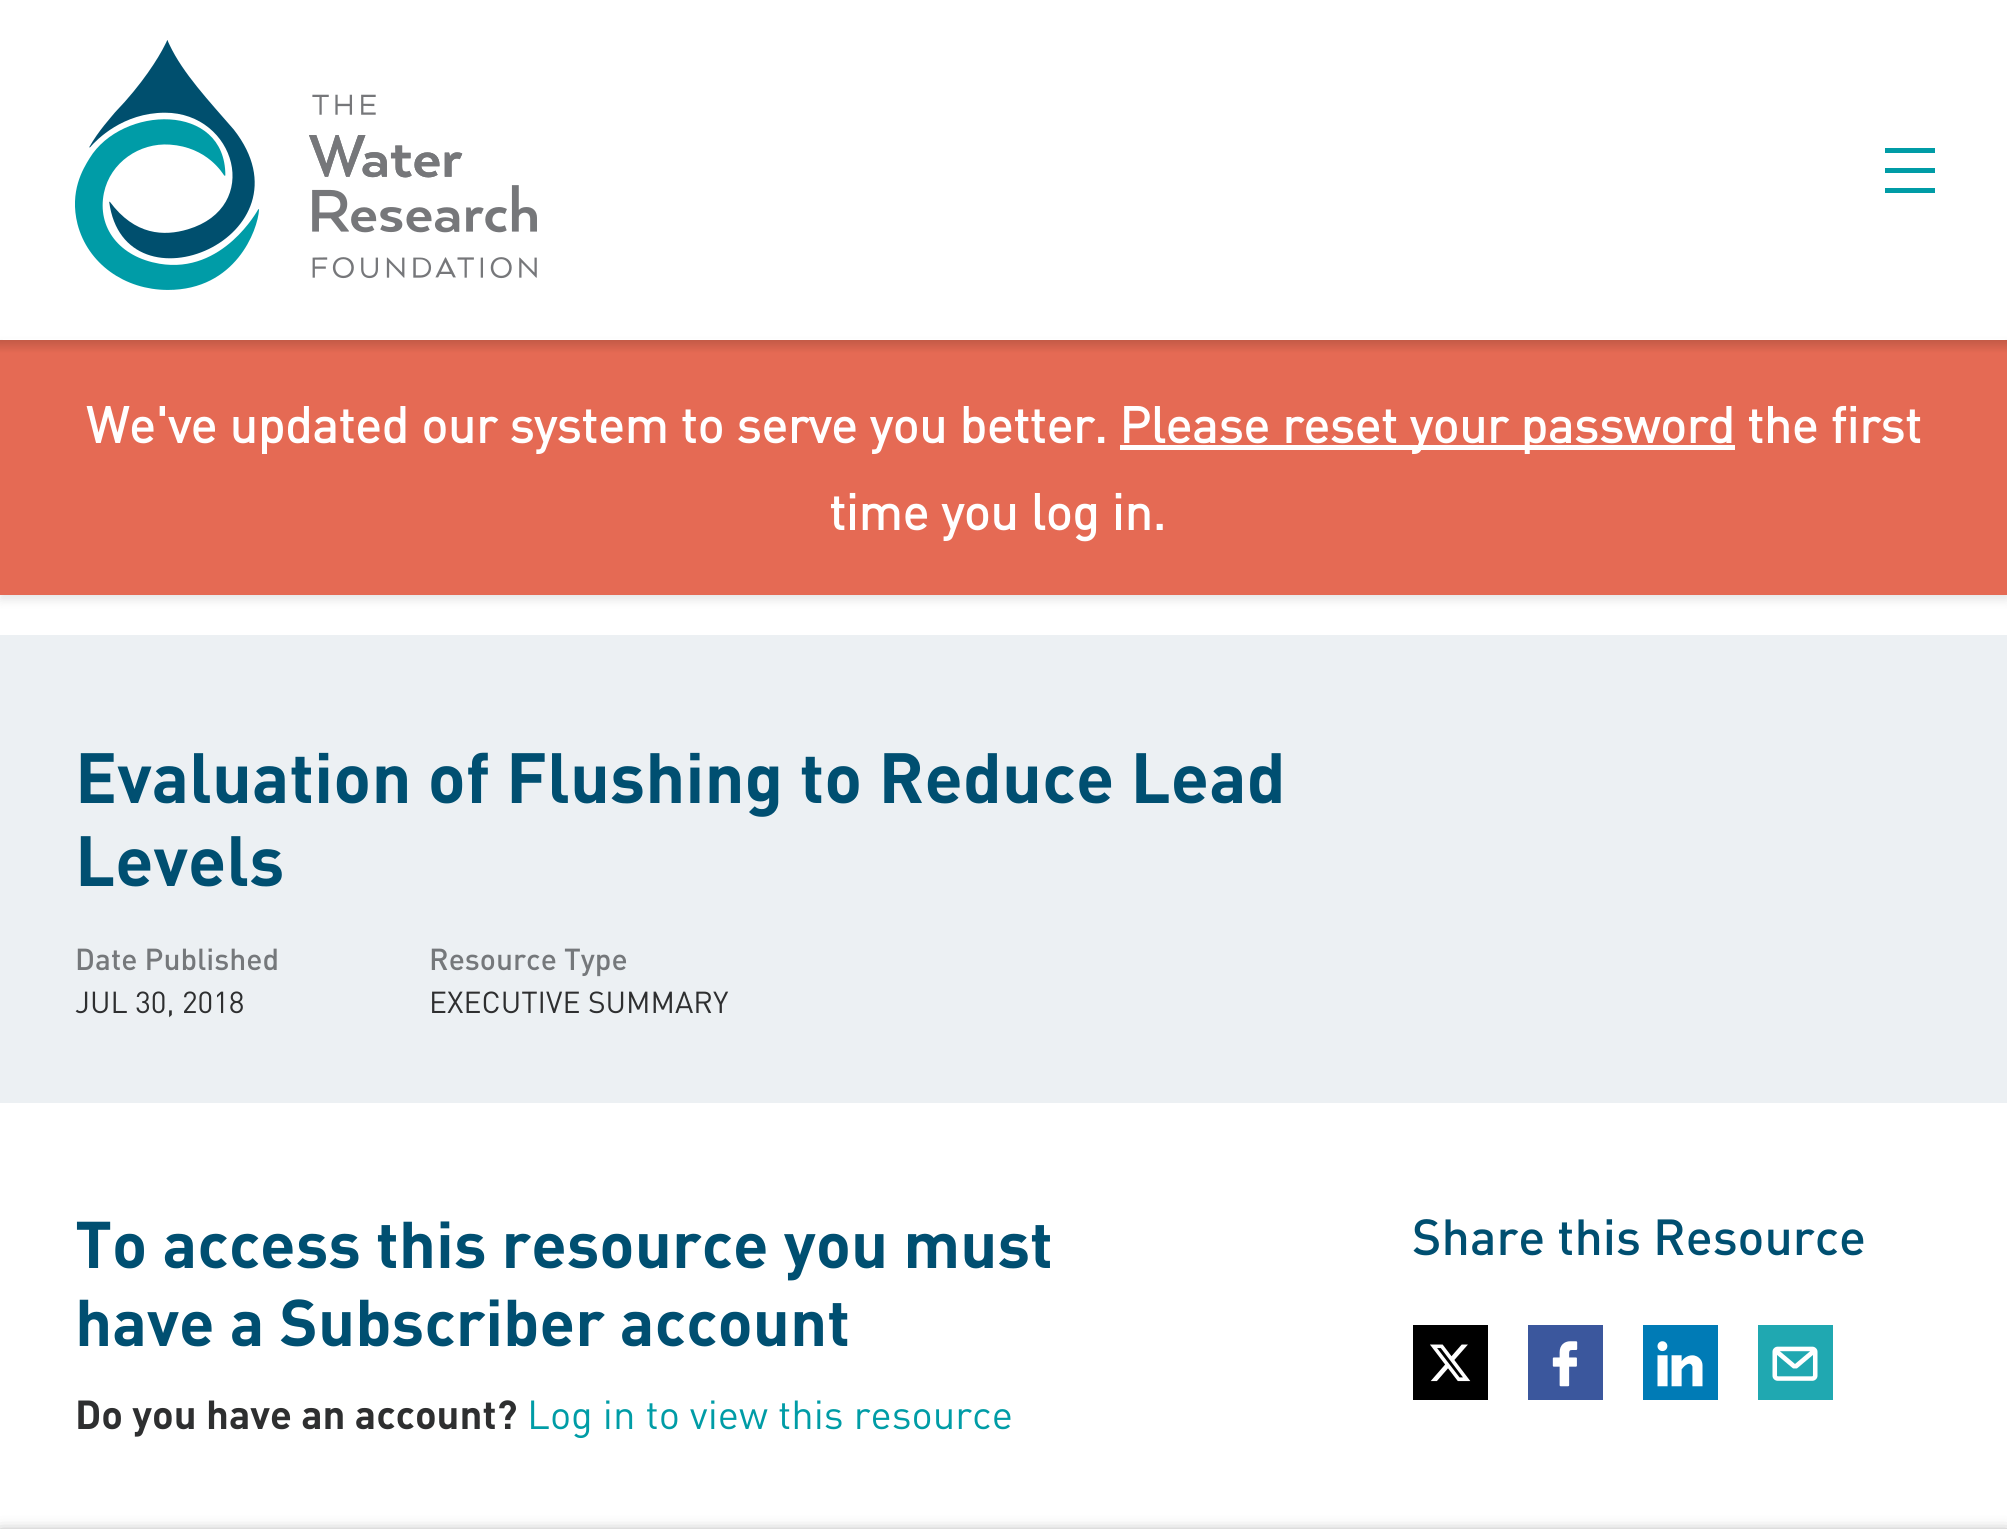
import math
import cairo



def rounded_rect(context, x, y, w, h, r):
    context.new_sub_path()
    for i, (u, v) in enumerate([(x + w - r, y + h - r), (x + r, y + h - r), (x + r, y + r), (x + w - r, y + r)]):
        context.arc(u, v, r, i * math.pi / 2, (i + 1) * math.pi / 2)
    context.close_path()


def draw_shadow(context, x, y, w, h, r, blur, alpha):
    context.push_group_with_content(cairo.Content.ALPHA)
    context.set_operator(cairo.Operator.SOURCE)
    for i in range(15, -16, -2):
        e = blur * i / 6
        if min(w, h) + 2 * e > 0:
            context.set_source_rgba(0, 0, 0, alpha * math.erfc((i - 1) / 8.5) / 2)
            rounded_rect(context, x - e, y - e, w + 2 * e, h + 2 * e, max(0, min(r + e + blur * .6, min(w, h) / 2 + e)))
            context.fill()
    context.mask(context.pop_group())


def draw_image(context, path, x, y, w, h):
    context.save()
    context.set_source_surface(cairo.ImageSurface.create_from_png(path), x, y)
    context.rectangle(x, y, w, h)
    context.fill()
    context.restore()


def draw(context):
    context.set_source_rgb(1, 1, 1)
    context.paint()
    context.set_source_rgb(0, 0, 0)
    draw_shadow(context, 0, 345, 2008, 255, 0, 5, 0.1)
    context.set_source_rgb(1, 1, 1)
    context.rectangle(3, 339, 2002, 1)
    context.fill()
    draw_image(context, "images/1.png", 75, 40, 462, 250)
    context.set_source_rgb(0, 156 / 255, 166 / 255)
    context.rectangle(1885, 168, 50, 5)
    context.fill()
    context.rectangle(1885, 148, 50, 5)
    context.fill()
    context.rectangle(1885, 188, 50, 5)
    context.fill()
    gradient = cairo.LinearGradient(1004, 340, 1004, 353)
    gradient.add_color_stop_rgba(0, 195 / 255, 90 / 255, 71 / 255, 1)
    gradient.add_color_stop_rgba(1, 229 / 255, 106 / 255, 84 / 255, 1)
    context.set_source(gradient)
    context.rectangle(0, 340, 2007, 13)
    context.fill()
    context.set_source_rgb(229 / 255, 106 / 255, 84 / 255)
    context.rectangle(0, 353, 2007, 242)
    context.fill()
    context.set_source_rgb(1, 1, 1)
    context.rectangle(1120, 445, 615, 5)
    context.fill()
    context.set_source_rgb(236 / 255, 240 / 255, 243 / 255)
    context.rectangle(0, 635, 2007, 468)
    context.fill()
    context.set_source_rgb(0, 0, 0)
    context.rectangle(1413, 1325, 75, 75)
    context.fill()
    draw_image(context, "images/2.png", 1430, 1344, 41, 38)
    context.set_source_rgb(59 / 255, 87 / 255, 157 / 255)
    context.rectangle(1528, 1325, 75, 75)
    context.fill()
    draw_image(context, "images/3.png", 1552, 1341, 26, 46)
    context.set_source_rgb(0, 123 / 255, 182 / 255)
    context.rectangle(1643, 1325, 75, 75)
    context.fill()
    draw_image(context, "images/4.png", 1657, 1341, 46, 46)
    context.set_source_rgb(32 / 255, 168 / 255, 177 / 255)
    context.rectangle(1758, 1325, 75, 75)
    context.fill()
    draw_image(context, "images/5.png", 1772, 1346, 46, 35)
    context.set_source_rgb(0, 0, 0)
    draw_shadow(context, 0, 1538, 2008, 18, 0, 9, 0.85)
    context.select_font_face("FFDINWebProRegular", cairo.FontSlant.NORMAL, cairo.FontWeight.BOLD)
    context.set_font_size(50)
    context.set_source_rgb(1, 1, 1)
    context.move_to(86, 443)
    context.show_text("We've updated our system to serve you better.")
    context.move_to(1119, 443)
    context.show_text("Please reset your password the first")
    context.move_to(829, 530)
    context.show_text("time you log in.")
    context.select_font_face("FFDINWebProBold")
    context.set_font_size(70)
    context.set_source_rgb(0, 79 / 255, 113 / 255)
    context.move_to(75, 803)
    context.show_text("Evaluation of Flushing to Reduce Lead")
    context.move_to(75, 886)
    context.show_text("Levels")
    context.select_font_face("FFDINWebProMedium")
    context.set_font_size(30)
    context.set_source_rgb(117 / 255, 120 / 255, 123 / 255)
    context.move_to(75, 970)
    context.show_text("Date Published")
    context.select_font_face("FFDINWebProRegular")
    context.set_source_rgb(46 / 255, 47 / 255, 48 / 255)
    context.move_to(75, 1013)
    context.show_text("JUL 30, 2018")
    context.select_font_face("FFDINWebProMedium")
    context.set_source_rgb(117 / 255, 120 / 255, 123 / 255)
    context.move_to(429, 970)
    context.show_text("Resource Type")
    context.select_font_face("FFDINWebProRegular")
    context.set_source_rgb(46 / 255, 47 / 255, 48 / 255)
    context.move_to(429, 1013)
    context.show_text("EXECUTIVE SUMMARY")
    context.select_font_face("FFDINWebProBold")
    context.set_font_size(65)
    context.set_source_rgb(0, 79 / 255, 113 / 255)
    context.move_to(75, 1268)
    context.show_text("To access this resource you must")
    context.move_to(75, 1346)
    context.show_text("have a Subscriber account")
    context.set_font_size(40)
    context.set_source_rgb(46 / 255, 47 / 255, 48 / 255)
    context.move_to(75, 1429)
    context.show_text("Do you have an account?")
    context.select_font_face("FFDINWebProRegular")
    context.set_source_rgb(0, 156 / 255, 166 / 255)
    context.move_to(527, 1429)
    context.show_text("Log in to view this resource")
    context.select_font_face("FFDINWebProMedium")
    context.set_font_size(50)
    context.set_source_rgb(0, 79 / 255, 113 / 255)
    context.move_to(1412, 1255)
    context.show_text("Share this Resource")


surface = cairo.ImageSurface(cairo.Format.RGB24, 2007, 1529)
context = cairo.Context(surface)
options = cairo.FontOptions()
options.set_hint_metrics(cairo.HintMetrics.OFF)
options.set_hint_style(cairo.HintStyle.NONE)
context.set_font_options(options)
context.set_miter_limit(4)
draw(context)
surface.write_to_png("out.png")
